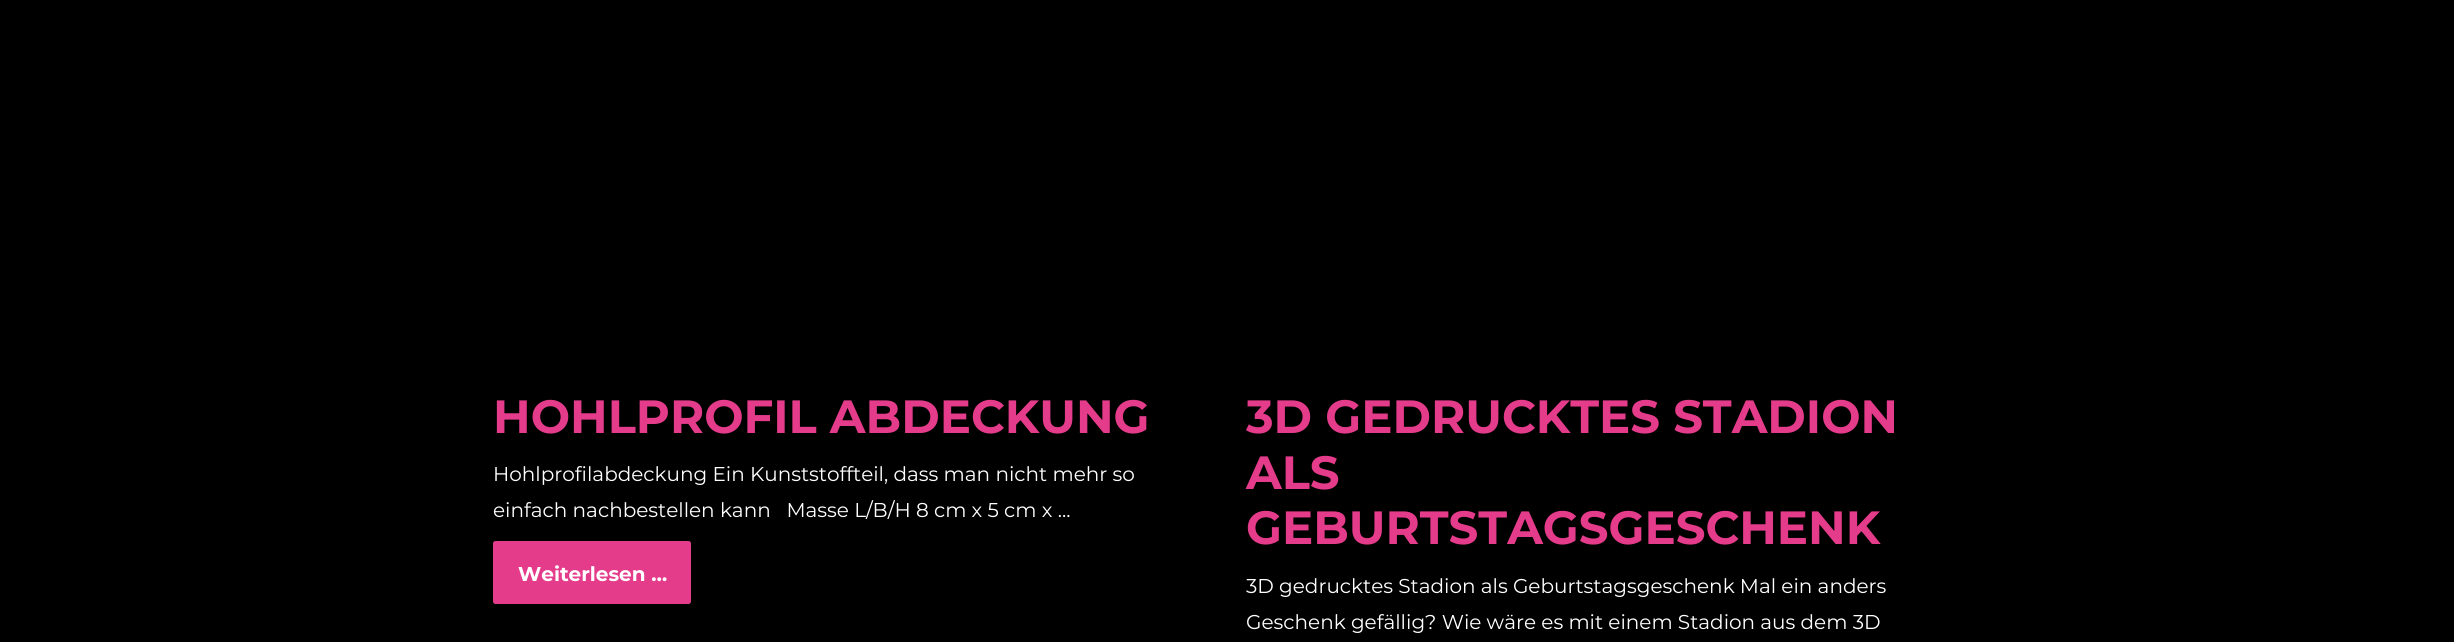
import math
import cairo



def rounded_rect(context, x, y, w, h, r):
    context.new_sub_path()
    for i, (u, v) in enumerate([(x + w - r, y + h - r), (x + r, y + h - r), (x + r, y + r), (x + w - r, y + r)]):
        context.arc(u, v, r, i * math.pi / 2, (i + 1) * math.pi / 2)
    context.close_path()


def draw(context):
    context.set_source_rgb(0, 0, 0)
    context.paint()
    context.set_source_rgb(229 / 255, 59 / 255, 139 / 255)
    rounded_rect(context, 493, 541, 198, 63, 2.5)
    context.fill()
    context.select_font_face("Montserrat", cairo.FontSlant.NORMAL, cairo.FontWeight.BOLD)
    context.set_font_size(46.6)
    context.move_to(493, 433)
    context.show_text("HOHLPROFIL ABDECKUNG")
    context.select_font_face("Montserrat")
    context.set_font_size(20)
    context.set_source_rgb(1, 1, 1)
    context.move_to(493, 481)
    context.show_text("Hohlprofilabdeckung Ein Kunststoffteil, dass man nicht mehr so")
    context.move_to(493, 517)
    context.show_text("einfach nachbestellen kann   Masse L/B/H 8 cm x 5 cm x ...")
    context.select_font_face("Montserrat", cairo.FontSlant.NORMAL, cairo.FontWeight.BOLD)
    context.move_to(518, 581)
    context.show_text("Weiterlesen …")
    context.set_font_size(46.6)
    context.set_source_rgb(229 / 255, 59 / 255, 139 / 255)
    context.move_to(1246, 433)
    context.show_text("3D GEDRUCKTES STADION")
    context.move_to(1246, 489)
    context.show_text("ALS")
    context.move_to(1246, 544)
    context.show_text("GEBURTSTAGSGESCHENK")
    context.select_font_face("Montserrat")
    context.set_font_size(20)
    context.set_source_rgb(1, 1, 1)
    context.move_to(1246, 593)
    context.show_text("3D gedrucktes Stadion als Geburtstagsgeschenk Mal ein anders")
    context.move_to(1246, 629)
    context.show_text("Geschenk gefällig? Wie wäre es mit einem Stadion aus dem 3D")


surface = cairo.ImageSurface(cairo.Format.RGB24, 2454, 642)
context = cairo.Context(surface)
options = cairo.FontOptions()
options.set_hint_metrics(cairo.HintMetrics.OFF)
options.set_hint_style(cairo.HintStyle.NONE)
context.set_font_options(options)
context.set_miter_limit(4)
draw(context)
surface.write_to_png("out.png")
